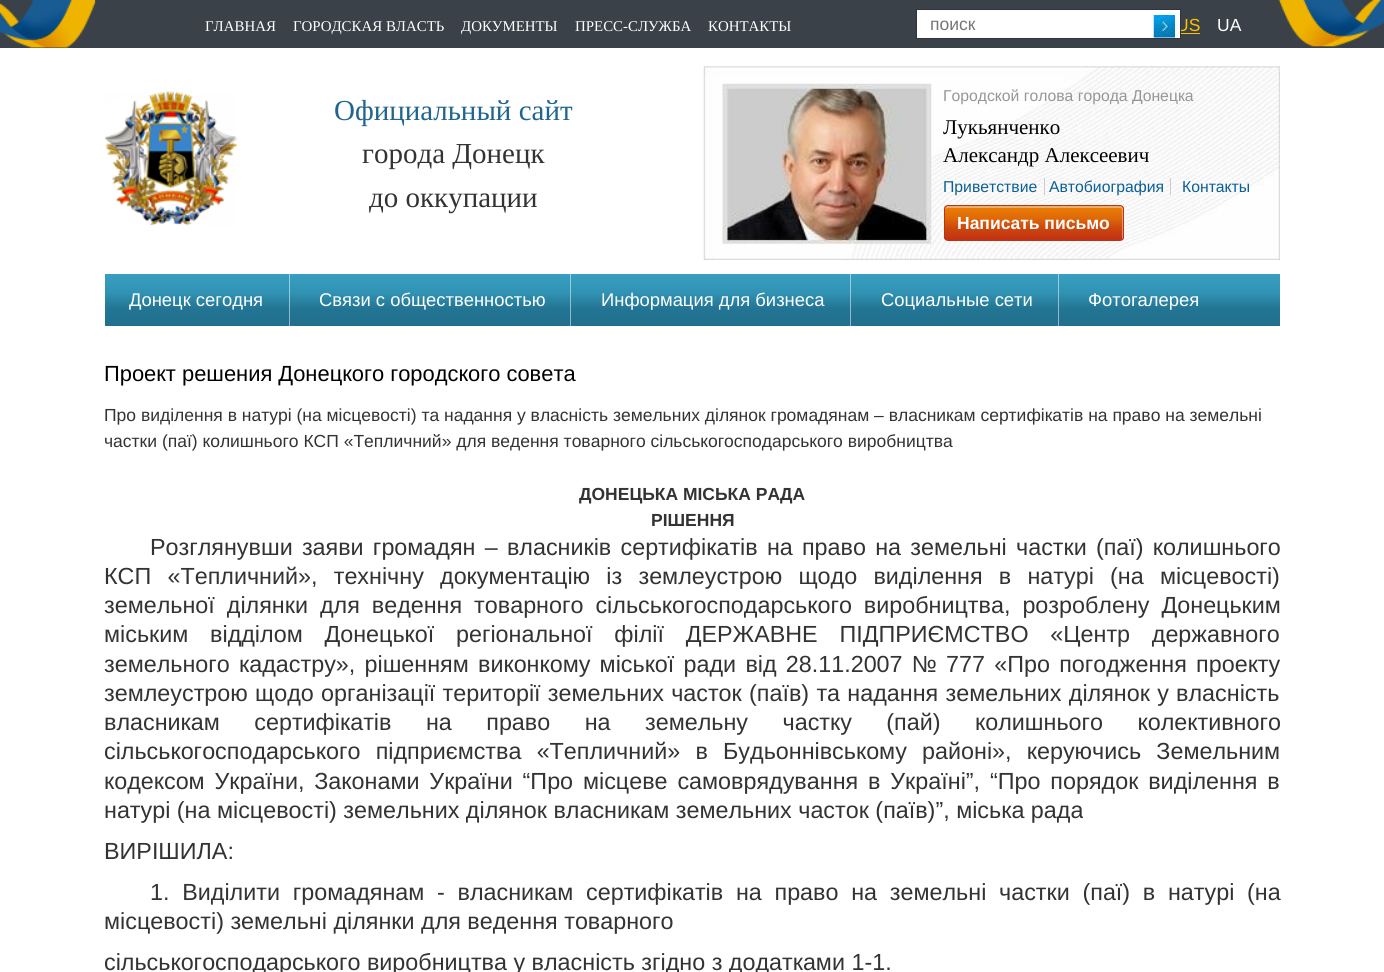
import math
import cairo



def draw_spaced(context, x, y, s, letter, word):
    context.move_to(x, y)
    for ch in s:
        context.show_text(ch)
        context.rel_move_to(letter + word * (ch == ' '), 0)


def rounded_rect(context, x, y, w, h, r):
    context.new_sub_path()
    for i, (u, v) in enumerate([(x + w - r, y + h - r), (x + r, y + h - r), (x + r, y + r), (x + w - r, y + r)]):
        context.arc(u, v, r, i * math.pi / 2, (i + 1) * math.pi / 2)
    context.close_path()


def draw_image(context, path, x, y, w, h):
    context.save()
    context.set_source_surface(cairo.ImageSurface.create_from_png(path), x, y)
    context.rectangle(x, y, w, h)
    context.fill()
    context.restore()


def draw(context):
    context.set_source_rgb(1, 1, 1)
    context.paint()
    context.set_source_rgb(58 / 255, 65 / 255, 72 / 255)
    context.rectangle(0, 0, 1384, 48)
    context.fill()
    draw_image(context, "images/1.png", 0, 0, 1384, 48)
    context.set_source_rgb(1, 192 / 255, 1 / 255)
    context.rectangle(1181, 33, 19, 1)
    context.fill()
    draw_image(context, "images/3.png", 105, 91, 133, 135)
    draw_image(context, "images/4.png", 703, 66, 577, 194)
    draw_image(context, "images/5.png", 722, 83, 210, 161)
    context.set_source_rgb(205 / 255, 202 / 255, 208 / 255)
    context.rectangle(1044, 178, 1, 17)
    context.fill()
    context.rectangle(1170, 178, 1, 17)
    context.fill()
    context.save()
    rounded_rect(context, 944, 205, 180, 36, 4)
    context.clip()
    gradient = cairo.LinearGradient(1034, 206, 1034, 240)
    gradient.add_color_stop_rgba(0, 237 / 255, 129 / 255, 3 / 255, 1)
    gradient.add_color_stop_rgba(0.35, 223 / 255, 105 / 255, 8 / 255, 1)
    gradient.add_color_stop_rgba(0.66, 204 / 255, 71 / 255, 14 / 255, 1)
    gradient.add_color_stop_rgba(1, 192 / 255, 49 / 255, 18 / 255, 1)
    context.set_source(gradient)
    context.rectangle(944, 206, 180, 34)
    context.fill()
    context.restore()
    context.set_source_rgba(225 / 255, 225 / 255, 225 / 255, 0.5)
    context.new_path()
    context.move_to(948, 208)
    context.line_to(1120, 208)
    context.curve_to(1121, 208, 1122, 209, 1122, 210)
    context.line_to(1122, 240)
    context.curve_to(1123, 239, 1123, 238, 1123, 238)
    context.line_to(1123, 208)
    context.curve_to(1123, 207, 1122, 206, 1120, 206)
    context.line_to(948, 206)
    context.curve_to(946, 206, 945, 207, 945, 208)
    context.line_to(945, 210)
    context.curve_to(945, 209, 946, 208, 948, 208)
    context.close_path()
    context.fill()
    rounded_rect(context, 944.5, 205.5, 179, 35, 3.5)
    context.set_source_rgb(192 / 255, 49 / 255, 18 / 255)
    context.set_line_width(1)
    context.stroke()
    gradient = cairo.LinearGradient(693, 274, 693, 326)
    gradient.add_color_stop_rgba(0, 56 / 255, 159 / 255, 194 / 255, 1)
    gradient.add_color_stop_rgba(0.35, 49 / 255, 147 / 255, 180 / 255, 1)
    gradient.add_color_stop_rgba(0.66, 35 / 255, 117 / 255, 147 / 255, 1)
    gradient.add_color_stop_rgba(1, 32 / 255, 111 / 255, 141 / 255, 1)
    context.set_source(gradient)
    context.rectangle(105, 274, 1175, 52)
    context.fill()
    gradient = cairo.LinearGradient(693, 274, 693, 326)
    gradient.add_color_stop_rgba(0, 156 / 255, 207 / 255, 225 / 255, 1)
    gradient.add_color_stop_rgba(0.35, 152 / 255, 201 / 255, 218 / 255, 1)
    gradient.add_color_stop_rgba(0.66, 145 / 255, 186 / 255, 201 / 255, 1)
    gradient.add_color_stop_rgba(1, 144 / 255, 183 / 255, 198 / 255, 1)
    context.set_source(gradient)
    context.rectangle(1058, 274, 1, 52)
    context.fill()
    context.rectangle(850, 274, 1, 52)
    context.fill()
    context.rectangle(570, 274, 1, 52)
    context.fill()
    context.rectangle(289, 274, 1, 52)
    context.fill()
    context.select_font_face("Liberation Serif")
    context.set_font_size(14.9)
    context.set_source_rgb(1, 1, 1)
    context.move_to(205, 31)
    context.show_text("ГЛАВНАЯ")
    context.move_to(293, 31)
    context.show_text("ГОРОДСКАЯ ВЛАСТЬ")
    context.move_to(461, 31)
    context.show_text("ДОКУМЕНТЫ")
    context.move_to(575, 31)
    context.show_text("ПРЕСС-СЛУЖБА")
    context.move_to(708, 31)
    context.show_text("КОНТАКТЫ")
    context.select_font_face("Liberation Sans")
    context.set_font_size(17.5)
    context.set_source_rgb(1, 192 / 255, 1 / 255)
    context.move_to(1176, 31)
    context.show_text("US")
    context.set_source_rgb(1, 1, 1)
    context.rectangle(916.5, 9.5, 264, 29)
    context.fill_preserve()
    context.set_source_rgb(46 / 255, 52 / 255, 58 / 255)
    context.stroke()
    draw_image(context, "images/2.png", 1153, 15, 22, 23)
    context.set_source_rgb(117 / 255, 117 / 255, 117 / 255)
    context.move_to(930, 30)
    context.show_text("поиск")
    context.set_source_rgb(1, 1, 1)
    context.move_to(1217, 31)
    context.show_text("UA")
    context.select_font_face("Liberation Serif")
    context.set_font_size(29)
    context.set_source_rgb(32 / 255, 101 / 255, 141 / 255)
    context.move_to(334, 120)
    context.show_text("Официальный сайт")
    context.set_source_rgb(51 / 255, 51 / 255, 51 / 255)
    context.move_to(362, 163)
    context.show_text("города Донецк")
    context.move_to(369, 207)
    context.show_text("до оккупации")
    context.select_font_face("Liberation Sans")
    context.set_font_size(15.75)
    context.set_source_rgb(150 / 255, 150 / 255, 150 / 255)
    context.move_to(943, 101)
    context.show_text("Городской голова города Донецка")
    context.select_font_face("Liberation Serif")
    context.set_font_size(21)
    context.set_source_rgb(0, 0, 0)
    context.move_to(943, 134)
    context.show_text("Лукьянченко")
    context.move_to(943, 162)
    context.show_text("Александр Алексеевич")
    context.select_font_face("Liberation Sans")
    context.set_font_size(15.75)
    context.set_source_rgb(10 / 255, 95 / 255, 148 / 255)
    context.move_to(943, 192)
    context.show_text("Приветствие")
    context.move_to(1049, 192)
    context.show_text("Автобиография")
    context.move_to(1182, 192)
    context.show_text("Контакты")
    context.select_font_face("Liberation Sans", cairo.FontSlant.NORMAL, cairo.FontWeight.BOLD)
    context.set_font_size(17.5)
    context.set_source_rgb(1, 1, 1)
    context.move_to(957, 229)
    context.show_text("Написать письмо")
    context.select_font_face("Liberation Sans")
    context.set_font_size(18.4)
    context.move_to(129, 306)
    context.show_text("Донецк сегодня")
    context.move_to(319, 306)
    context.show_text("Связи с общественностью")
    context.move_to(601, 306)
    context.show_text("Информация для бизнеса")
    context.move_to(881, 306)
    context.show_text("Социальные сети")
    context.move_to(1088, 306)
    context.show_text("Фотогалерея")
    context.set_font_size(21.9)
    context.set_source_rgb(0, 0, 0)
    context.move_to(104, 381)
    context.show_text("Проект решения Донецкого городского совета")
    context.set_font_size(17.5)
    context.set_source_rgb(51 / 255, 51 / 255, 51 / 255)
    context.move_to(104, 421)
    context.show_text("Про виділення в натурі (на місцевості) та надання у власність земельних ділянок громадянам – власникам сертифікатів на право на земельні")
    context.move_to(104, 447)
    context.show_text("частки (паї) колишнього КСП «Тепличний» для ведення товарного сільськогосподарського виробництва")
    context.select_font_face("Liberation Sans", cairo.FontSlant.NORMAL, cairo.FontWeight.BOLD)
    context.move_to(579, 500)
    context.show_text("ДОНЕЦЬКА МІСЬКА РАДА")
    context.move_to(651, 526)
    context.show_text("РІШЕННЯ")
    context.select_font_face("Liberation Sans")
    context.set_font_size(23.33)
    draw_spaced(context, 150, 555, "Розглянувши заяви громадян – власників сертифікатів на право на земельні частки (паї) колишнього", 0, 2.75)
    draw_spaced(context, 104, 584, "КСП «Тепличний», технічну документацію із землеустрою щодо виділення в натурі (на місцевості)", 0, 9.75)
    draw_spaced(context, 104, 613, "земельної ділянки для ведення товарного сільськогосподарського виробництва, розроблену Донецьким", 0, 5.5)
    draw_spaced(context, 104, 642, "міським відділом Донецької регіональної філії ДЕРЖАВНЕ ПІДПРИЄМСТВО «Центр державного", 0, 15.25)
    draw_spaced(context, 104, 672, "земельного кадастру», рішенням виконкому міської ради від 28.11.2007 № 777 «Про погодження проекту", 0, 2.75)
    draw_spaced(context, 104, 701, "землеустрою щодо організації території земельних часток (паїв) та надання земельних ділянок у власність", 0, 0.8)
    draw_spaced(context, 104, 730, "власникам сертифікатів на право на земельну частку (пай) колишнього колективного", 0, 28)
    draw_spaced(context, 104, 759, "сільськогосподарського підприємства «Тепличний» в Будьоннівському районі», керуючись Земельним", 0, 8.75)
    draw_spaced(context, 104, 789, "кодексом України, Законами України “Про місцеве самоврядування в Україні”, “Про порядок виділення в", 0, 3.4)
    context.move_to(104, 818)
    context.show_text("натурі (на місцевості) земельних ділянок власникам земельних часток (паїв)”, міська рада")
    context.move_to(104, 859)
    context.show_text("ВИРІШИЛА:")
    draw_spaced(context, 150, 900, "1. Виділити громадянам - власникам сертифікатів на право на земельні частки (паї) в натурі (на", 0, 6.25)
    context.move_to(104, 929)
    context.show_text("місцевості) земельні ділянки для ведення товарного")
    context.move_to(104, 970)
    context.show_text("сільськогосподарського виробництва у власність згідно з додатками 1-1.")


surface = cairo.ImageSurface(cairo.Format.RGB24, 1384, 972)
context = cairo.Context(surface)
options = cairo.FontOptions()
options.set_hint_metrics(cairo.HintMetrics.OFF)
options.set_hint_style(cairo.HintStyle.NONE)
context.set_font_options(options)
context.set_miter_limit(4)
draw(context)
surface.write_to_png("out.png")
